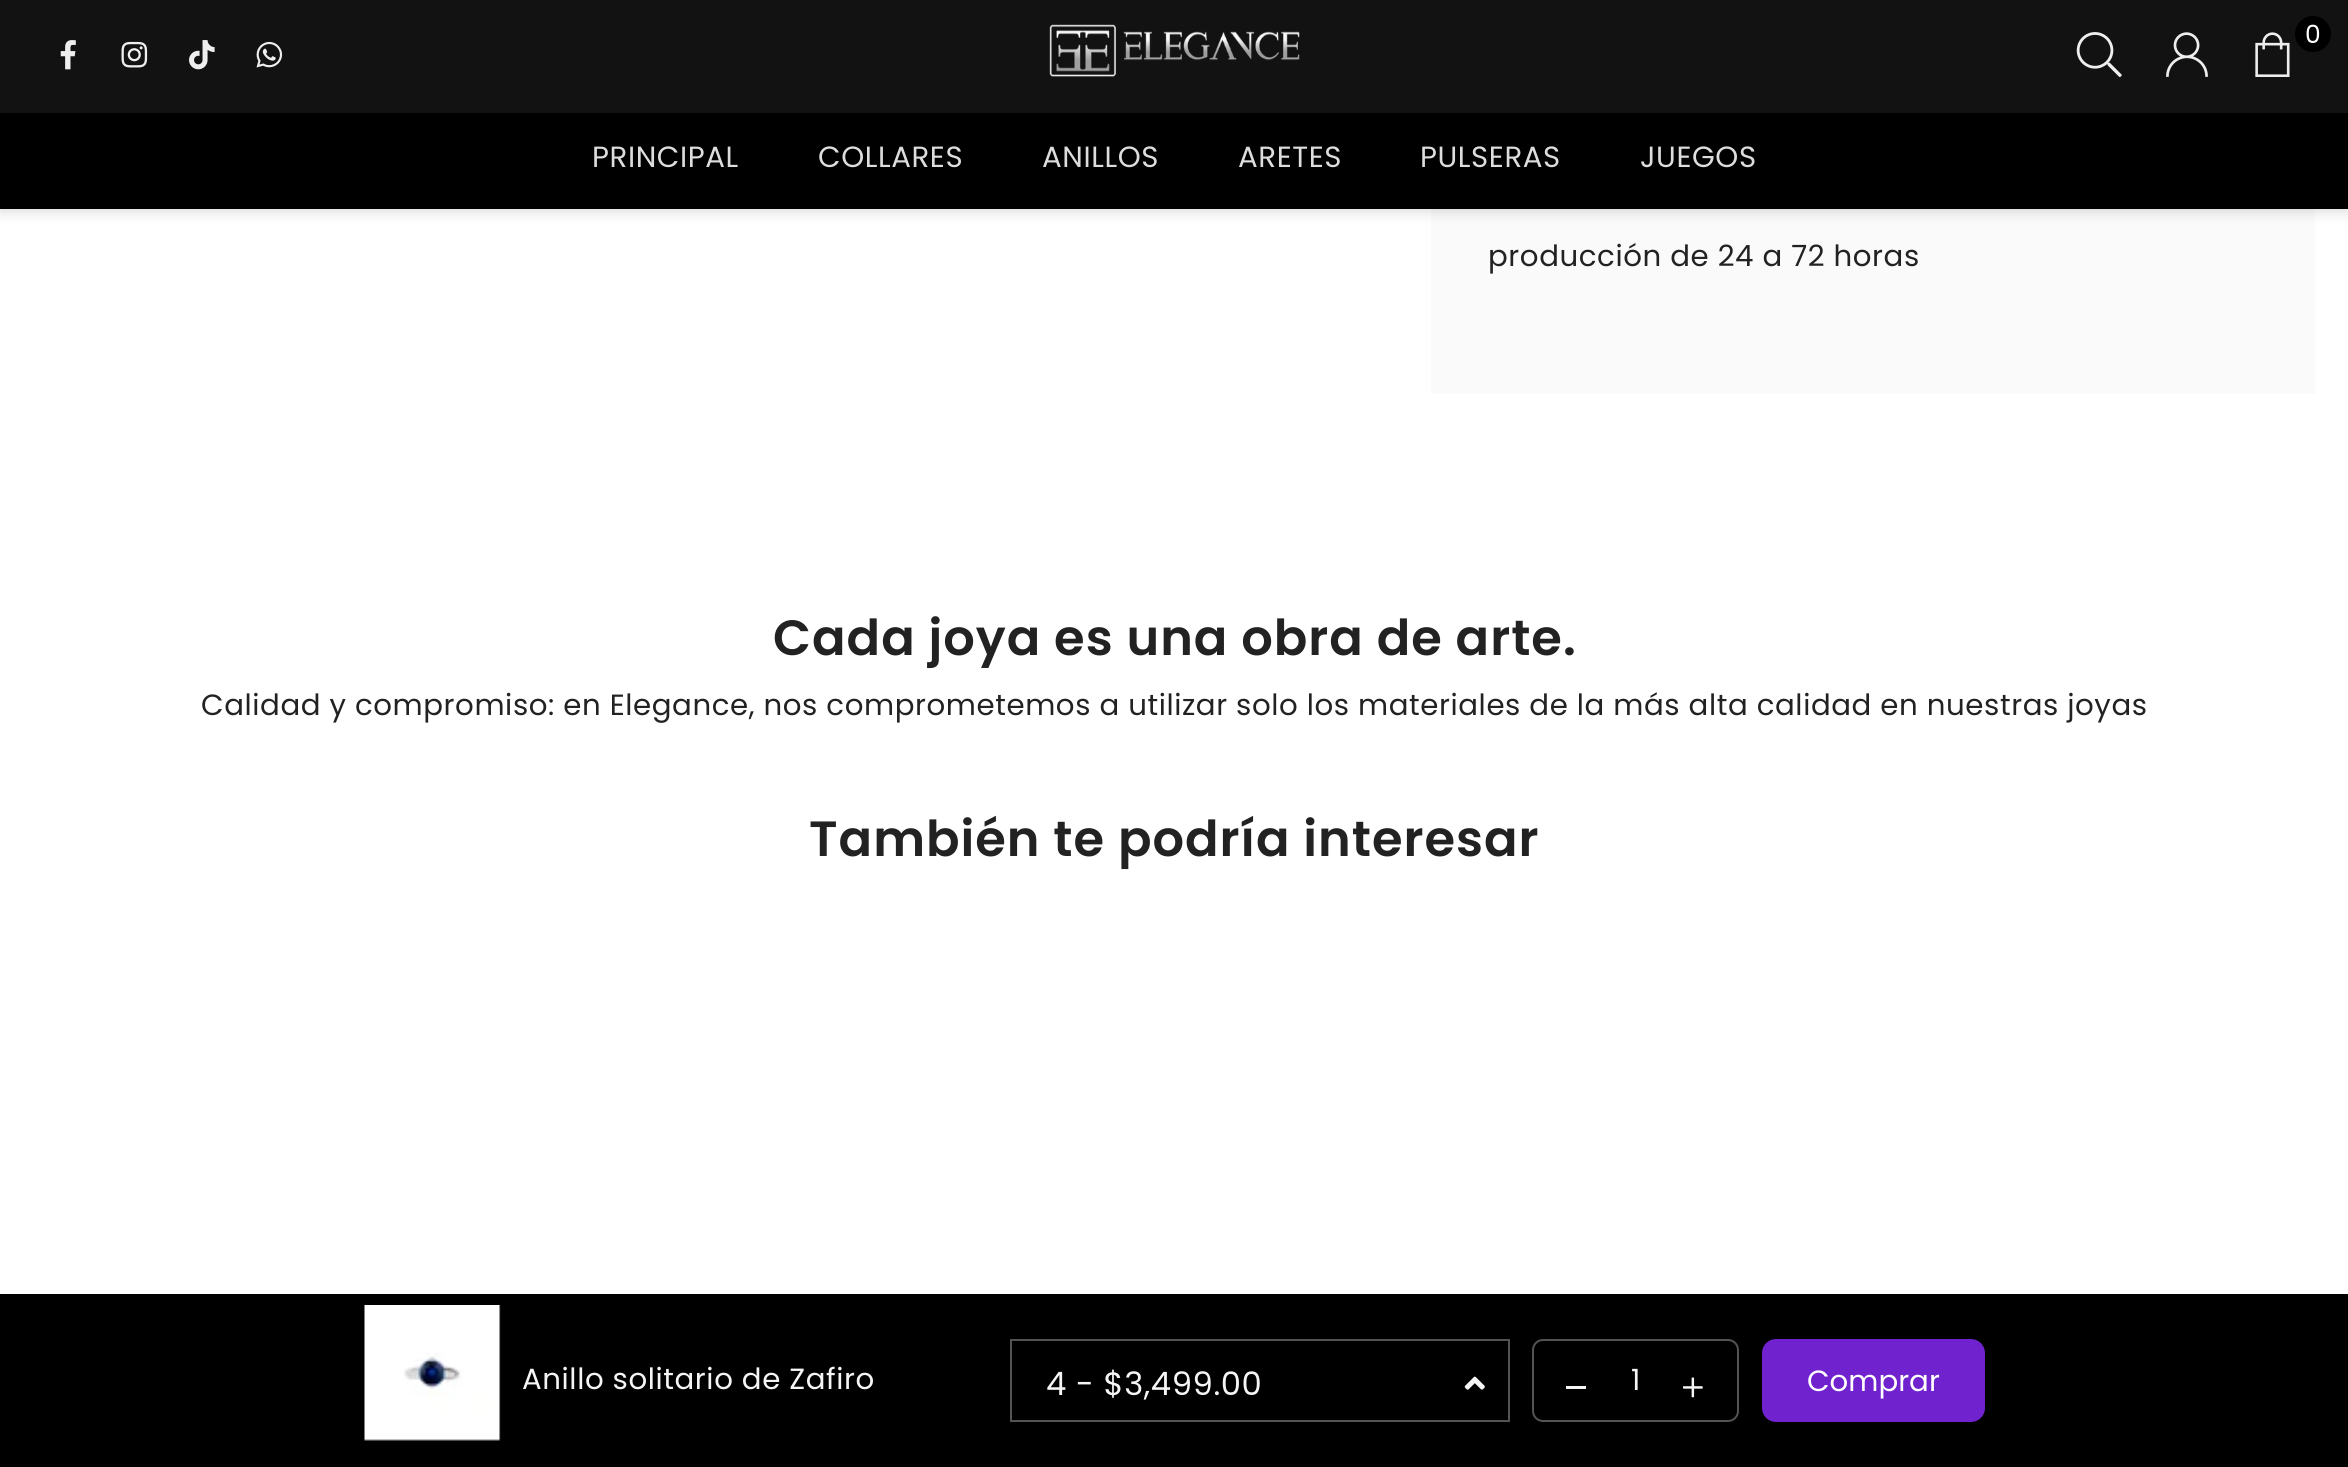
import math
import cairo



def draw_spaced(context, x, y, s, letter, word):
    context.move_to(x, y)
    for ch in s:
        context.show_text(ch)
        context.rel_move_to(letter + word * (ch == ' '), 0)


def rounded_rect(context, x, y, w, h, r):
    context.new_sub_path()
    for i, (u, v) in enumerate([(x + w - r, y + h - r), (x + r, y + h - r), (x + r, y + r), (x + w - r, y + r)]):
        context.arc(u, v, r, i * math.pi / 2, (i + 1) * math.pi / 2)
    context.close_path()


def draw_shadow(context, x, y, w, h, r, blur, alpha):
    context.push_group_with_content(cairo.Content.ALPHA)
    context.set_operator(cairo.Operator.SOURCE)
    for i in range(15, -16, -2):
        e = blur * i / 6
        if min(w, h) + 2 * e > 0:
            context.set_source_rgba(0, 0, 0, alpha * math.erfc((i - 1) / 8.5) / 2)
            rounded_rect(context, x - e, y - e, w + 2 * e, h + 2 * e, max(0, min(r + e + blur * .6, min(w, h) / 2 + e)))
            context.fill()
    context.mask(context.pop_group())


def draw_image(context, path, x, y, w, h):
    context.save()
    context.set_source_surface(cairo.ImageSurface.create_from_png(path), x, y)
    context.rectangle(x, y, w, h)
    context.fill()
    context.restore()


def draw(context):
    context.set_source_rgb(1, 1, 1)
    context.paint()
    context.set_source_rgb(250 / 255, 250 / 255, 250 / 255)
    context.rectangle(1431, 209, 884, 185)
    context.fill()
    context.set_source_rgb(0, 0, 0)
    draw_shadow(context, 0, 0, 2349, 209, 0, 8, 0.2)
    context.set_source_rgb(18 / 255, 18 / 255, 18 / 255)
    context.rectangle(0, 0, 2348, 113)
    context.fill()
    draw_image(context, "images/1.png", 1049, 24, 251, 53)
    draw_image(context, "images/2.png", 2076, 32, 46, 45)
    draw_image(context, "images/3.png", 2166, 32, 42, 45)
    draw_image(context, "images/4.png", 2255, 32, 35, 45)
    context.set_source_rgb(0, 0, 0)
    context.arc(2313, 34, 18, 0, 2 * math.pi)
    context.fill()
    draw_image(context, "images/5.png", 60, 40, 16, 30)
    draw_image(context, "images/6.png", 121, 41, 27, 27)
    draw_image(context, "images/7.png", 189, 40, 26, 30)
    draw_image(context, "images/8.png", 256, 41, 27, 27)
    context.rectangle(0, 113, 2348, 96)
    context.fill()
    context.rectangle(0, 1294, 2348, 173)
    context.fill()
    draw_image(context, "images/9.png", 364, 1305, 137, 136)
    context.rectangle(1011, 1340, 498, 81)
    context.set_source_rgb(83 / 255, 83 / 255, 83 / 255)
    context.stroke()
    draw_image(context, "images/10.png", 1464, 1376, 21, 14)
    rounded_rect(context, 1533, 1340, 205, 81, 10)
    context.stroke()
    context.set_source_rgb(245 / 255, 245 / 255, 245 / 255)
    context.rectangle(1566, 1386, 20, 3)
    context.fill()
    draw_image(context, "images/11.png", 1683, 1377, 20, 21)
    context.set_source_rgb(112 / 255, 34 / 255, 206 / 255)
    rounded_rect(context, 1762, 1339, 223, 83, 14)
    context.fill()
    context.select_font_face("Poppins")
    context.set_font_size(25)
    context.set_source_rgb(1, 1, 1)
    draw_spaced(context, 2305, 43, "0", 0.58, 0)
    context.set_font_size(29.25)
    context.set_source_rgb(221 / 255, 221 / 255, 221 / 255)
    draw_spaced(context, 592, 167, "PRINCIPAL", 0.58, 0)
    draw_spaced(context, 818, 167, "COLLARES", 0.58, 0)
    draw_spaced(context, 1042, 167, "ANILLOS", 0.58, 0)
    draw_spaced(context, 1238, 167, "ARETES", 0.58, 0)
    draw_spaced(context, 1420, 167, "PULSERAS", 0.58, 0)
    draw_spaced(context, 1640, 167, "JUEGOS", 0.58, 0)
    context.set_source_rgb(34 / 255, 34 / 255, 34 / 255)
    draw_spaced(context, 1488, 266, "producción de 24 a 72 horas", 0.58, 0)
    context.set_source_rgb(245 / 255, 245 / 255, 245 / 255)
    draw_spaced(context, 522, 1389, "Anillo solitario de Zafiro", 0.58, 0)
    context.set_font_size(32.25)
    draw_spaced(context, 1046, 1395, "4 - $3,499.00", 0.58, 0)
    context.set_font_size(29.25)
    context.move_to(1631, 1390)
    context.show_text("1")
    context.set_source_rgb(1, 1, 1)
    context.move_to(1807, 1391)
    context.show_text("Comprar")
    context.select_font_face("Poppins SemiBold")
    context.set_font_size(49.5)
    context.set_source_rgb(34 / 255, 34 / 255, 34 / 255)
    draw_spaced(context, 773, 655, "Cada joya es una obra de arte.", 1, 0)
    context.select_font_face("Poppins")
    context.set_font_size(29.25)
    draw_spaced(context, 201, 715, "Calidad y compromiso: en Elegance, nos comprometemos a utilizar solo los materiales de la más alta calidad en nuestras joyas", 0.58, 0)
    context.select_font_face("Poppins SemiBold")
    context.set_font_size(49.5)
    draw_spaced(context, 809, 856, "También te podría interesar", 1, 0)


surface = cairo.ImageSurface(cairo.Format.RGB24, 2348, 1467)
context = cairo.Context(surface)
options = cairo.FontOptions()
options.set_hint_metrics(cairo.HintMetrics.OFF)
options.set_hint_style(cairo.HintStyle.NONE)
context.set_font_options(options)
context.set_miter_limit(4)
draw(context)
surface.write_to_png("out.png")
